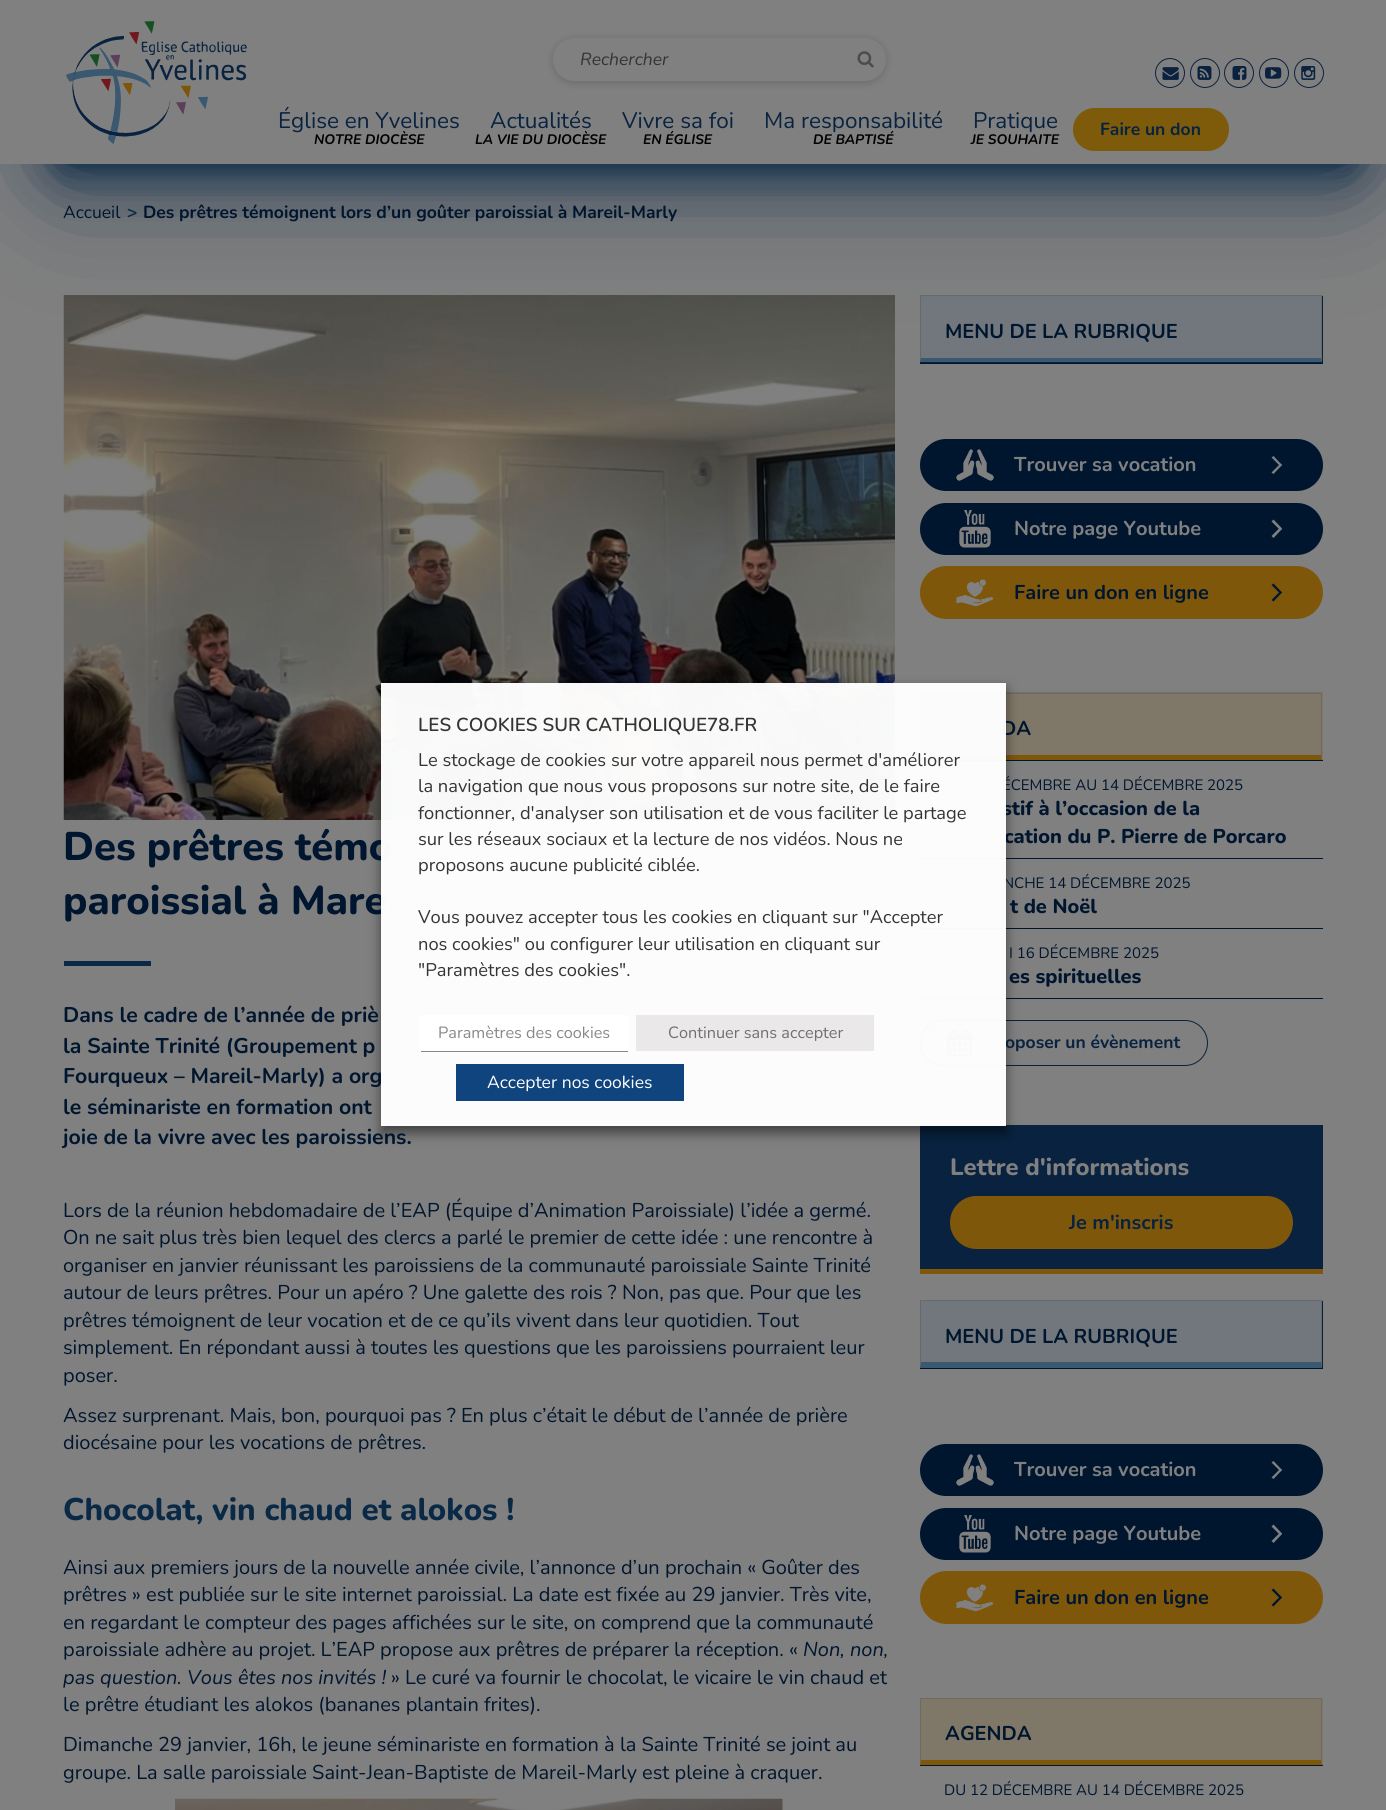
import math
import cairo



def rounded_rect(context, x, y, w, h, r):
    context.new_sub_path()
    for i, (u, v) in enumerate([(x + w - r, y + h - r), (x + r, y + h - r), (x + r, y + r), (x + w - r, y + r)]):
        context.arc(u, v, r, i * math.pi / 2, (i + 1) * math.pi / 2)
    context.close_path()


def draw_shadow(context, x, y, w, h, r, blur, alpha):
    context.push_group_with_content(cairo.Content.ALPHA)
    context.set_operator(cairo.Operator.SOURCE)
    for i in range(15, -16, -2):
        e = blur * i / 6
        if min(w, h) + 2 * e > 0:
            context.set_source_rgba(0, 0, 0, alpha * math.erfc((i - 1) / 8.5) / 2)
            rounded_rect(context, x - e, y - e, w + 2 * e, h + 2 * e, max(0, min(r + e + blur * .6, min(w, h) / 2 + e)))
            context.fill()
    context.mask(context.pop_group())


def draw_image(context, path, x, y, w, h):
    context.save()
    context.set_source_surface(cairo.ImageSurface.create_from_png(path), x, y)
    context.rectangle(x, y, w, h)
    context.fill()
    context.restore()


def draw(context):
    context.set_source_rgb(128 / 255, 128 / 255, 128 / 255)
    context.paint()
    context.set_source_rgb(9 / 255, 41 / 255, 70 / 255)
    draw_shadow(context, 64, 3, 1285, 162, 0, 62.5, 0.8)
    draw_shadow(context, 64, 3, 1285, 162, 0, 31, 0.8)
    draw_shadow(context, 64, 3, 1285, 162, 0, 15.5, 0.8)
    context.set_source_rgb(128 / 255, 128 / 255, 128 / 255)
    context.rectangle(0, 0, 1386, 164)
    context.fill()
    draw_image(context, "images/1.png", 66, 21, 181, 123)
    context.set_source_rgb(0, 0, 0)
    draw_shadow(context, 553, 39, 333, 44, 22, 4, 0.16)
    context.set_source_rgb(128 / 255, 128 / 255, 128 / 255)
    rounded_rect(context, 553, 38, 333, 43, 21.5)
    context.fill()
    draw_image(context, "images/2.png", 857, 51, 17, 17)
    context.arc(1170, 73, 14.5, 0, 2 * math.pi)
    context.set_source_rgb(11 / 255, 34 / 255, 63 / 255)
    context.set_line_width(1)
    context.stroke()
    draw_image(context, "images/3.png", 1162, 67, 17, 13)
    context.arc(1205, 73, 14.5, 0, 2 * math.pi)
    context.stroke()
    draw_image(context, "images/4.png", 1197, 66, 15, 14)
    context.arc(1239, 73, 14.5, 0, 2 * math.pi)
    context.stroke()
    draw_image(context, "images/5.png", 1232, 66, 15, 14)
    context.arc(1274, 73, 14.5, 0, 2 * math.pi)
    context.stroke()
    draw_image(context, "images/6.png", 1265, 67, 17, 12)
    context.arc(1309, 73, 14.5, 0, 2 * math.pi)
    context.stroke()
    draw_image(context, "images/7.png", 1301, 66, 15, 14)
    context.set_source_rgb(126 / 255, 91 / 255, 10 / 255)
    rounded_rect(context, 1073, 108, 156, 43, 21.5)
    context.fill()
    draw_image(context, "images/8.png", 63, 295, 832, 525)
    context.set_source_rgb(9 / 255, 41 / 255, 70 / 255)
    context.rectangle(64, 961, 87, 5)
    context.fill()
    draw_image(context, "images/9.png", 175, 1798, 608, 12)
    context.set_source_rgb(0, 21 / 255, 46 / 255)
    context.new_path()
    context.move_to(920, 362)
    context.line_to(920, 364)
    context.line_to(1323, 364)
    context.line_to(1323, 296)
    context.line_to(1322, 296)
    context.line_to(1322, 362)
    context.close_path()
    context.fill()
    context.set_source_rgba(58 / 255, 88 / 255, 112 / 255, 0.2)
    context.rectangle(920, 295, 403, 68)
    context.fill()
    context.set_source_rgb(101 / 255, 106 / 255, 110 / 255)
    context.new_path()
    context.move_to(920, 295)
    context.line_to(1322, 295)
    context.line_to(1321, 296)
    context.line_to(921, 296)
    context.close_path()
    context.fill()
    context.set_source_rgba(56 / 255, 56 / 255, 56 / 255, 0.21)
    context.new_path()
    context.move_to(1322, 295)
    context.line_to(1322, 362)
    context.line_to(1321, 358)
    context.line_to(1321, 296)
    context.close_path()
    context.fill()
    context.set_source_rgb(58 / 255, 88 / 255, 112 / 255)
    context.new_path()
    context.move_to(1322, 362)
    context.line_to(920, 362)
    context.line_to(921, 358)
    context.line_to(1321, 358)
    context.close_path()
    context.fill()
    context.set_source_rgba(56 / 255, 56 / 255, 56 / 255, 0.21)
    context.new_path()
    context.move_to(920, 362)
    context.line_to(920, 295)
    context.line_to(921, 296)
    context.line_to(921, 358)
    context.close_path()
    context.fill()
    context.set_source_rgb(0, 21 / 255, 46 / 255)
    rounded_rect(context, 920, 439, 403, 52, 26)
    context.fill()
    draw_image(context, "images/10.png", 956, 449, 38, 32)
    context.set_source_rgb(128 / 255, 128 / 255, 128 / 255)
    context.new_path()
    context.move_to(1271.5, 472.5)
    context.line_to(1280.5, 463.5)
    context.line_to(1282, 465)
    context.line_to(1273.5, 474)
    context.close_path()
    context.fill()
    context.new_path()
    context.move_to(1273.5, 456)
    context.line_to(1282, 465)
    context.line_to(1280.5, 466.5)
    context.line_to(1271.5, 457.5)
    context.close_path()
    context.fill()
    context.set_source_rgb(0, 21 / 255, 46 / 255)
    rounded_rect(context, 920, 503, 403, 52, 26)
    context.fill()
    draw_image(context, "images/11.png", 959, 510, 32, 38)
    context.set_source_rgb(128 / 255, 128 / 255, 128 / 255)
    context.new_path()
    context.move_to(1271.5, 536)
    context.line_to(1280.5, 527)
    context.line_to(1282, 529)
    context.line_to(1273.5, 538)
    context.close_path()
    context.fill()
    context.new_path()
    context.move_to(1273.5, 519.5)
    context.line_to(1282, 528.5)
    context.line_to(1280.5, 530.5)
    context.line_to(1271.5, 521.5)
    context.close_path()
    context.fill()
    context.set_source_rgb(126 / 255, 87 / 255, 11 / 255)
    rounded_rect(context, 920, 566, 403, 53, 26.5)
    context.fill()
    draw_image(context, "images/12.png", 956, 579, 38, 28)
    context.set_source_rgb(0, 21 / 255, 46 / 255)
    context.new_path()
    context.move_to(1271.5, 600)
    context.line_to(1280.5, 591)
    context.line_to(1282, 592.5)
    context.line_to(1273.5, 601.5)
    context.close_path()
    context.fill()
    context.new_path()
    context.move_to(1273.5, 583.5)
    context.line_to(1282, 592.5)
    context.line_to(1280.5, 594)
    context.line_to(1271.5, 585)
    context.close_path()
    context.fill()
    context.new_path()
    context.move_to(920, 760)
    context.line_to(920, 761)
    context.line_to(1323, 761)
    context.line_to(1323, 694)
    context.line_to(1322, 694)
    context.line_to(1322, 760)
    context.close_path()
    context.fill()
    context.set_source_rgb(127 / 255, 119 / 255, 103 / 255)
    context.rectangle(920, 693, 403, 67)
    context.fill()
    context.set_source_rgba(56 / 255, 56 / 255, 56 / 255, 0.21)
    context.new_path()
    context.move_to(920, 692)
    context.line_to(1322, 692)
    context.line_to(1321, 694)
    context.line_to(921, 694)
    context.close_path()
    context.fill()
    context.new_path()
    context.move_to(1322, 692)
    context.line_to(1322, 760)
    context.line_to(1321, 755)
    context.line_to(1321, 694)
    context.close_path()
    context.fill()
    context.set_source_rgb(126 / 255, 87 / 255, 11 / 255)
    context.new_path()
    context.move_to(1322, 760)
    context.line_to(920, 760)
    context.line_to(921, 755)
    context.line_to(1321, 755)
    context.close_path()
    context.fill()
    context.set_source_rgba(56 / 255, 56 / 255, 56 / 255, 0.21)
    context.new_path()
    context.move_to(920, 760)
    context.line_to(920, 692)
    context.line_to(921, 694)
    context.line_to(921, 755)
    context.close_path()
    context.fill()
    context.set_source_rgb(0, 21 / 255, 46 / 255)
    context.rectangle(920, 858, 403, 1)
    context.fill()
    context.rectangle(920, 928, 403, 1)
    context.fill()
    context.rectangle(920, 998, 403, 1)
    context.fill()
    rounded_rect(context, 920.5, 1020.5, 287, 45, 22.5)
    context.set_source_rgb(8 / 255, 34 / 255, 63 / 255)
    context.stroke()
    draw_image(context, "images/13.png", 947, 1030, 25, 27)
    context.rectangle(920, 1125, 403, 144)
    context.fill()
    context.set_source_rgb(126 / 255, 87 / 255, 11 / 255)
    context.rectangle(920, 1269, 403, 5)
    context.fill()
    rounded_rect(context, 950, 1196, 343, 53, 26.5)
    context.fill()
    context.set_source_rgb(0, 21 / 255, 46 / 255)
    context.new_path()
    context.move_to(920, 1368)
    context.line_to(920, 1369)
    context.line_to(1323, 1369)
    context.line_to(1323, 1301)
    context.line_to(1322, 1301)
    context.line_to(1322, 1368)
    context.close_path()
    context.fill()
    context.set_source_rgba(58 / 255, 88 / 255, 112 / 255, 0.2)
    context.rectangle(920, 1300, 403, 68)
    context.fill()
    context.set_source_rgb(102 / 255, 106 / 255, 110 / 255)
    context.new_path()
    context.move_to(920, 1300)
    context.line_to(1322, 1300)
    context.line_to(1321, 1301)
    context.line_to(921, 1301)
    context.close_path()
    context.fill()
    context.set_source_rgba(56 / 255, 56 / 255, 56 / 255, 0.21)
    context.new_path()
    context.move_to(1322, 1300)
    context.line_to(1322, 1368)
    context.line_to(1321, 1362)
    context.line_to(1321, 1301)
    context.close_path()
    context.fill()
    context.set_source_rgb(58 / 255, 88 / 255, 112 / 255)
    context.new_path()
    context.move_to(1322, 1368)
    context.line_to(920, 1368)
    context.line_to(921, 1362)
    context.line_to(1321, 1362)
    context.close_path()
    context.fill()
    context.set_source_rgba(56 / 255, 56 / 255, 56 / 255, 0.21)
    context.new_path()
    context.move_to(920, 1368)
    context.line_to(920, 1300)
    context.line_to(921, 1301)
    context.line_to(921, 1362)
    context.close_path()
    context.fill()
    context.set_source_rgb(0, 21 / 255, 46 / 255)
    rounded_rect(context, 920, 1444, 403, 52, 26)
    context.fill()
    draw_image(context, "images/10.png", 956, 1454, 38, 32)
    context.set_source_rgb(128 / 255, 128 / 255, 128 / 255)
    context.new_path()
    context.move_to(1271.5, 1477.5)
    context.line_to(1280.5, 1468.5)
    context.line_to(1282, 1470)
    context.line_to(1273.5, 1479)
    context.close_path()
    context.fill()
    context.new_path()
    context.move_to(1273.5, 1461)
    context.line_to(1282, 1470)
    context.line_to(1280.5, 1471.5)
    context.line_to(1271.5, 1462.5)
    context.close_path()
    context.fill()
    context.set_source_rgb(0, 21 / 255, 46 / 255)
    rounded_rect(context, 920, 1508, 403, 52, 26)
    context.fill()
    draw_image(context, "images/11.png", 959, 1515, 32, 38)
    context.set_source_rgb(128 / 255, 128 / 255, 128 / 255)
    context.new_path()
    context.move_to(1271.5, 1541)
    context.line_to(1280.5, 1532)
    context.line_to(1282, 1534)
    context.line_to(1273.5, 1543)
    context.close_path()
    context.fill()
    context.new_path()
    context.move_to(1273.5, 1524.5)
    context.line_to(1282, 1533.5)
    context.line_to(1280.5, 1535.5)
    context.line_to(1271.5, 1526.5)
    context.close_path()
    context.fill()
    context.set_source_rgb(126 / 255, 87 / 255, 11 / 255)
    rounded_rect(context, 920, 1571, 403, 53, 26.5)
    context.fill()
    draw_image(context, "images/12.png", 956, 1584, 38, 28)
    context.set_source_rgb(0, 21 / 255, 46 / 255)
    context.new_path()
    context.move_to(1271.5, 1605)
    context.line_to(1280.5, 1596)
    context.line_to(1282, 1597.5)
    context.line_to(1273.5, 1606.5)
    context.close_path()
    context.fill()
    context.new_path()
    context.move_to(1273.5, 1588.5)
    context.line_to(1282, 1597.5)
    context.line_to(1280.5, 1599)
    context.line_to(1271.5, 1590)
    context.close_path()
    context.fill()
    context.new_path()
    context.move_to(920, 1765)
    context.line_to(920, 1766)
    context.line_to(1323, 1766)
    context.line_to(1323, 1699)
    context.line_to(1322, 1699)
    context.line_to(1322, 1765)
    context.close_path()
    context.fill()
    context.set_source_rgb(127 / 255, 119 / 255, 103 / 255)
    context.rectangle(920, 1698, 403, 67)
    context.fill()
    context.set_source_rgb(112 / 255, 106 / 255, 93 / 255)
    context.new_path()
    context.move_to(920, 1698)
    context.line_to(1322, 1698)
    context.line_to(1321, 1699)
    context.line_to(921, 1699)
    context.close_path()
    context.fill()
    context.set_source_rgba(56 / 255, 56 / 255, 56 / 255, 0.21)
    context.new_path()
    context.move_to(1322, 1698)
    context.line_to(1322, 1765)
    context.line_to(1321, 1760)
    context.line_to(1321, 1699)
    context.close_path()
    context.fill()
    context.set_source_rgb(126 / 255, 87 / 255, 11 / 255)
    context.new_path()
    context.move_to(1322, 1765)
    context.line_to(920, 1765)
    context.line_to(921, 1760)
    context.line_to(1321, 1760)
    context.close_path()
    context.fill()
    context.set_source_rgba(56 / 255, 56 / 255, 56 / 255, 0.21)
    context.new_path()
    context.move_to(920, 1765)
    context.line_to(920, 1698)
    context.line_to(921, 1699)
    context.line_to(921, 1760)
    context.close_path()
    context.fill()
    context.save()
    context.set_fill_rule(cairo.FillRule.EVEN_ODD)
    context.new_path()
    context.move_to(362, 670)
    context.line_to(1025, 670)
    context.line_to(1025, 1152)
    context.line_to(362, 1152)
    context.close_path()
    context.move_to(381, 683)
    context.line_to(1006, 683)
    context.line_to(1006, 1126)
    context.line_to(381, 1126)
    context.close_path()
    context.clip()
    context.set_source_rgb(0, 0, 0)
    draw_shadow(context, 381, 689, 625, 444, 0, 6, 0.5)
    context.restore()
    context.select_font_face("Nunito", cairo.FontSlant.ITALIC)
    context.set_font_size(17.5)
    context.set_source_rgb(52 / 255, 52 / 255, 52 / 255)
    context.move_to(580, 65)
    context.show_text("Rechercher")
    context.select_font_face("Nunito")
    context.set_font_size(22.5)
    context.set_source_rgb(8 / 255, 34 / 255, 63 / 255)
    context.move_to(278, 128)
    context.show_text("Église en Yvelines")
    context.select_font_face("Nunito", cairo.FontSlant.ITALIC, cairo.FontWeight.BOLD)
    context.set_font_size(13.75)
    context.set_source_rgb(0, 0, 0)
    context.move_to(314, 144)
    context.show_text("NOTRE DIOCÈSE")
    context.select_font_face("Nunito")
    context.set_font_size(22.5)
    context.set_source_rgb(8 / 255, 34 / 255, 63 / 255)
    context.move_to(490, 128)
    context.show_text("Actualités")
    context.select_font_face("Nunito", cairo.FontSlant.ITALIC, cairo.FontWeight.BOLD)
    context.set_font_size(13.75)
    context.set_source_rgb(0, 0, 0)
    context.move_to(475, 144)
    context.show_text("LA VIE DU DIOCÈSE")
    context.select_font_face("Nunito")
    context.set_font_size(22.5)
    context.set_source_rgb(8 / 255, 34 / 255, 63 / 255)
    context.move_to(622, 128)
    context.show_text("Vivre sa foi")
    context.select_font_face("Nunito", cairo.FontSlant.ITALIC, cairo.FontWeight.BOLD)
    context.set_font_size(13.75)
    context.set_source_rgb(0, 0, 0)
    context.move_to(643, 144)
    context.show_text("EN ÉGLISE")
    context.select_font_face("Nunito")
    context.set_font_size(22.5)
    context.set_source_rgb(8 / 255, 34 / 255, 63 / 255)
    context.move_to(764, 128)
    context.show_text("Ma responsabilité")
    context.select_font_face("Nunito", cairo.FontSlant.ITALIC, cairo.FontWeight.BOLD)
    context.set_font_size(13.75)
    context.set_source_rgb(0, 0, 0)
    context.move_to(813, 144)
    context.show_text("DE BAPTISÉ")
    context.select_font_face("Nunito")
    context.set_font_size(22.5)
    context.set_source_rgb(8 / 255, 34 / 255, 63 / 255)
    context.move_to(973, 128)
    context.show_text("Pratique")
    context.select_font_face("Nunito", cairo.FontSlant.ITALIC, cairo.FontWeight.BOLD)
    context.set_font_size(13.75)
    context.set_source_rgb(0, 0, 0)
    context.move_to(971, 144)
    context.show_text("JE SOUHAITE")
    context.select_font_face("Nunito", cairo.FontSlant.NORMAL, cairo.FontWeight.BOLD)
    context.set_font_size(17.5)
    context.set_source_rgb(8 / 255, 34 / 255, 63 / 255)
    context.move_to(1100, 135)
    context.show_text("Faire un don")
    context.select_font_face("Nunito")
    context.set_source_rgb(0, 21 / 255, 46 / 255)
    context.move_to(63, 218)
    context.show_text("Accueil")
    context.select_font_face("Nunito", cairo.FontSlant.NORMAL, cairo.FontWeight.BOLD)
    context.set_source_rgb(9 / 255, 41 / 255, 70 / 255)
    context.move_to(127, 218)
    context.show_text(">")
    context.set_source_rgb(0, 21 / 255, 46 / 255)
    context.move_to(143, 218)
    context.show_text("Des prêtres témoignent lors d’un goûter paroissial à Mareil-Marly")
    context.select_font_face("Nunito ExtraBold")
    context.set_font_size(40)
    context.move_to(63, 860)
    context.show_text("Des prêtres témo")
    context.move_to(63, 914)
    context.show_text("paroissial à Mare")
    context.select_font_face("Nunito", cairo.FontSlant.NORMAL, cairo.FontWeight.BOLD)
    context.set_font_size(21.25)
    context.move_to(63, 1022)
    context.show_text("Dans le cadre de l’année de priè")
    context.move_to(63, 1053)
    context.show_text("la Sainte Trinité (Groupement p")
    context.move_to(63, 1083)
    context.show_text("Fourqueux – Mareil-Marly) a org")
    context.move_to(63, 1114)
    context.show_text("le séminariste en formation ont")
    context.move_to(63, 1144)
    context.show_text("joie de la vivre avec les paroissiens.")
    context.select_font_face("Nunito")
    context.set_font_size(20)
    context.move_to(63, 1217)
    context.show_text("Lors de la réunion hebdomadaire de l’EAP (Équipe d’Animation Paroissiale) l’idée a germé.")
    context.move_to(63, 1244)
    context.show_text("On ne sait plus très bien lequel des clercs a parlé le premier de cette idée : une rencontre à")
    context.move_to(63, 1272)
    context.show_text("organiser en janvier réunissant les paroissiens de la communauté paroissiale Sainte Trinité")
    context.move_to(63, 1299)
    context.show_text("autour de leurs prêtres. Pour un apéro ? Une galette des rois ? Non, pas que. Pour que les")
    context.move_to(63, 1327)
    context.show_text("prêtres témoignent de leur vocation et de ce qu’ils vivent dans leur quotidien. Tout")
    context.move_to(63, 1354)
    context.show_text("simplement. En répondant aussi à toutes les questions que les paroissiens pourraient leur")
    context.move_to(63, 1382)
    context.show_text("poser.")
    context.move_to(63, 1422)
    context.show_text("Assez surprenant. Mais, bon, pourquoi pas ? En plus c’était le début de l’année de prière")
    context.move_to(63, 1449)
    context.show_text("diocésaine pour les vocations de prêtres.")
    context.select_font_face("Nunito ExtraBold")
    context.set_font_size(31.25)
    context.set_source_rgb(9 / 255, 41 / 255, 70 / 255)
    context.move_to(63, 1520)
    context.show_text("Chocolat, vin chaud et alokos !")
    context.select_font_face("Nunito")
    context.set_font_size(20)
    context.set_source_rgb(0, 21 / 255, 46 / 255)
    context.move_to(63, 1574)
    context.show_text("Ainsi aux premiers jours de la nouvelle année civile, l’annonce d’un prochain « Goûter des")
    context.move_to(63, 1601)
    context.show_text("prêtres » est publiée sur le site internet paroissial. La date est fixée au 29 janvier. Très vite,")
    context.move_to(63, 1629)
    context.show_text("en regardant le compteur des pages affichées sur le site, on comprend que la communauté")
    context.move_to(63, 1656)
    context.show_text("paroissiale adhère au projet. L’EAP propose aux prêtres de préparer la réception. «")
    context.select_font_face("Nunito", cairo.FontSlant.ITALIC)
    context.move_to(803, 1656)
    context.show_text("Non, non,")
    context.move_to(63, 1684)
    context.show_text("pas question. Vous êtes nos invités !")
    context.select_font_face("Nunito")
    context.move_to(391, 1684)
    context.show_text("» Le curé va fournir le chocolat, le vicaire le vin chaud et")
    context.move_to(63, 1711)
    context.show_text("le prêtre étudiant les alokos (bananes plantain frites).")
    context.move_to(63, 1751)
    context.show_text("Dimanche 29 janvier, 16h, le jeune séminariste en formation à la Sainte Trinité se joint au")
    context.move_to(63, 1779)
    context.show_text("groupe. La salle paroissiale Saint-Jean-Baptiste de Mareil-Marly est pleine à craquer.")
    context.select_font_face("Nunito", cairo.FontSlant.NORMAL, cairo.FontWeight.BOLD)
    context.move_to(945, 338)
    context.show_text("MENU DE LA RUBRIQUE")
    context.set_source_rgb(128 / 255, 128 / 255, 128 / 255)
    context.move_to(1014, 471)
    context.show_text("Trouver sa vocation")
    context.move_to(1014, 535)
    context.show_text("Notre page Youtube")
    context.set_source_rgb(0, 21 / 255, 46 / 255)
    context.move_to(1014, 599)
    context.show_text("Faire un don en ligne")
    context.move_to(1001, 735)
    context.show_text("DA")
    context.select_font_face("Nunito")
    context.set_font_size(15)
    context.move_to(1002, 790)
    context.show_text("ÉCEMBRE AU 14 DÉCEMBRE 2025")
    context.select_font_face("Nunito ExtraBold")
    context.set_font_size(20)
    context.move_to(1002, 815)
    context.show_text("stif à l’occasion de la")
    context.move_to(1004, 843)
    context.show_text("cation du P. Pierre de Porcaro")
    context.select_font_face("Nunito")
    context.set_font_size(15)
    context.move_to(1003, 888)
    context.show_text("NCHE 14 DÉCEMBRE 2025")
    context.select_font_face("Nunito ExtraBold")
    context.set_font_size(20)
    context.move_to(1010, 913)
    context.show_text("t de Noël")
    context.select_font_face("Nunito")
    context.set_font_size(15)
    context.move_to(1009, 958)
    context.show_text("I 16 DÉCEMBRE 2025")
    context.select_font_face("Nunito ExtraBold")
    context.set_font_size(20)
    context.move_to(1009, 983)
    context.show_text("es spirituelles")
    context.select_font_face("Nunito", cairo.FontSlant.NORMAL, cairo.FontWeight.BOLD)
    context.set_font_size(17.5)
    context.set_source_rgb(8 / 255, 34 / 255, 63 / 255)
    context.move_to(1005, 1048)
    context.show_text("oposer un évènement")
    context.select_font_face("Nunito ExtraBold")
    context.set_font_size(23.75)
    context.set_source_rgb(128 / 255, 128 / 255, 128 / 255)
    context.move_to(950, 1175)
    context.show_text("Lettre d'informations")
    context.select_font_face("Nunito", cairo.FontSlant.NORMAL, cairo.FontWeight.BOLD)
    context.set_font_size(20)
    context.set_source_rgb(8 / 255, 34 / 255, 63 / 255)
    context.move_to(1069, 1229)
    context.show_text("Je m'inscris")
    context.set_source_rgb(0, 21 / 255, 46 / 255)
    context.move_to(945, 1343)
    context.show_text("MENU DE LA RUBRIQUE")
    context.set_source_rgb(128 / 255, 128 / 255, 128 / 255)
    context.move_to(1014, 1476)
    context.show_text("Trouver sa vocation")
    context.move_to(1014, 1540)
    context.show_text("Notre page Youtube")
    context.set_source_rgb(0, 21 / 255, 46 / 255)
    context.move_to(1014, 1604)
    context.show_text("Faire un don en ligne")
    context.move_to(945, 1740)
    context.show_text("AGENDA")
    context.select_font_face("Nunito")
    context.set_font_size(15)
    context.move_to(944, 1795)
    context.show_text("DU 12 DÉCEMBRE AU 14 DÉCEMBRE 2025")
    context.set_source_rgba(1, 1, 1, 0.97)
    context.rectangle(381, 683, 625, 443)
    context.fill()
    context.select_font_face("Nunito SemiBold")
    context.set_font_size(18.75)
    context.set_source_rgb(52 / 255, 52 / 255, 52 / 255)
    context.move_to(418, 731)
    context.show_text("LES COOKIES SUR CATHOLIQUE78.FR")
    context.select_font_face("Nunito")
    context.set_font_size(18.3)
    context.move_to(418, 766)
    context.show_text("Le stockage de cookies sur votre appareil nous permet d'améliorer")
    context.move_to(418, 792)
    context.show_text("la navigation que nous vous proposons sur notre site, de le faire")
    context.move_to(418, 819)
    context.show_text("fonctionner, d'analyser son utilisation et de vous faciliter le partage")
    context.move_to(418, 845)
    context.show_text("sur les réseaux sociaux et la lecture de nos vidéos. Nous ne")
    context.move_to(418, 871)
    context.show_text("proposons aucune publicité ciblée.")
    context.move_to(418, 923)
    context.show_text("Vous pouvez accepter tous les cookies en cliquant sur \"Accepter")
    context.move_to(418, 950)
    context.show_text("nos cookies\" ou configurer leur utilisation en cliquant sur")
    context.move_to(418, 976)
    context.show_text("\"Paramètres des cookies\".")
    context.set_source_rgb(1, 1, 1)
    rounded_rect(context, 419, 1015, 211, 38, 5)
    context.fill()
    context.set_source_rgb(137 / 255, 136 / 255, 136 / 255)
    context.rectangle(421, 1051, 207, 1)
    context.fill()
    context.set_font_size(16.25)
    context.move_to(438, 1038)
    context.show_text("Paramètres des cookies")
    context.set_source_rgb(234 / 255, 232 / 255, 232 / 255)
    context.rectangle(636, 1015, 238, 36)
    context.fill()
    context.set_source_rgb(112 / 255, 112 / 255, 112 / 255)
    context.move_to(668, 1038)
    context.show_text("Continuer sans accepter")
    context.set_source_rgb(15 / 255, 68 / 255, 126 / 255)
    context.rectangle(456, 1064, 228, 37)
    context.fill()
    context.set_font_size(17.5)
    context.set_source_rgb(1, 1, 1)
    context.move_to(487, 1088)
    context.show_text("Accepter nos cookies")


surface = cairo.ImageSurface(cairo.Format.RGB24, 1386, 1810)
context = cairo.Context(surface)
options = cairo.FontOptions()
options.set_hint_metrics(cairo.HintMetrics.OFF)
options.set_hint_style(cairo.HintStyle.NONE)
context.set_font_options(options)
context.set_miter_limit(4)
draw(context)
surface.write_to_png("out.png")
